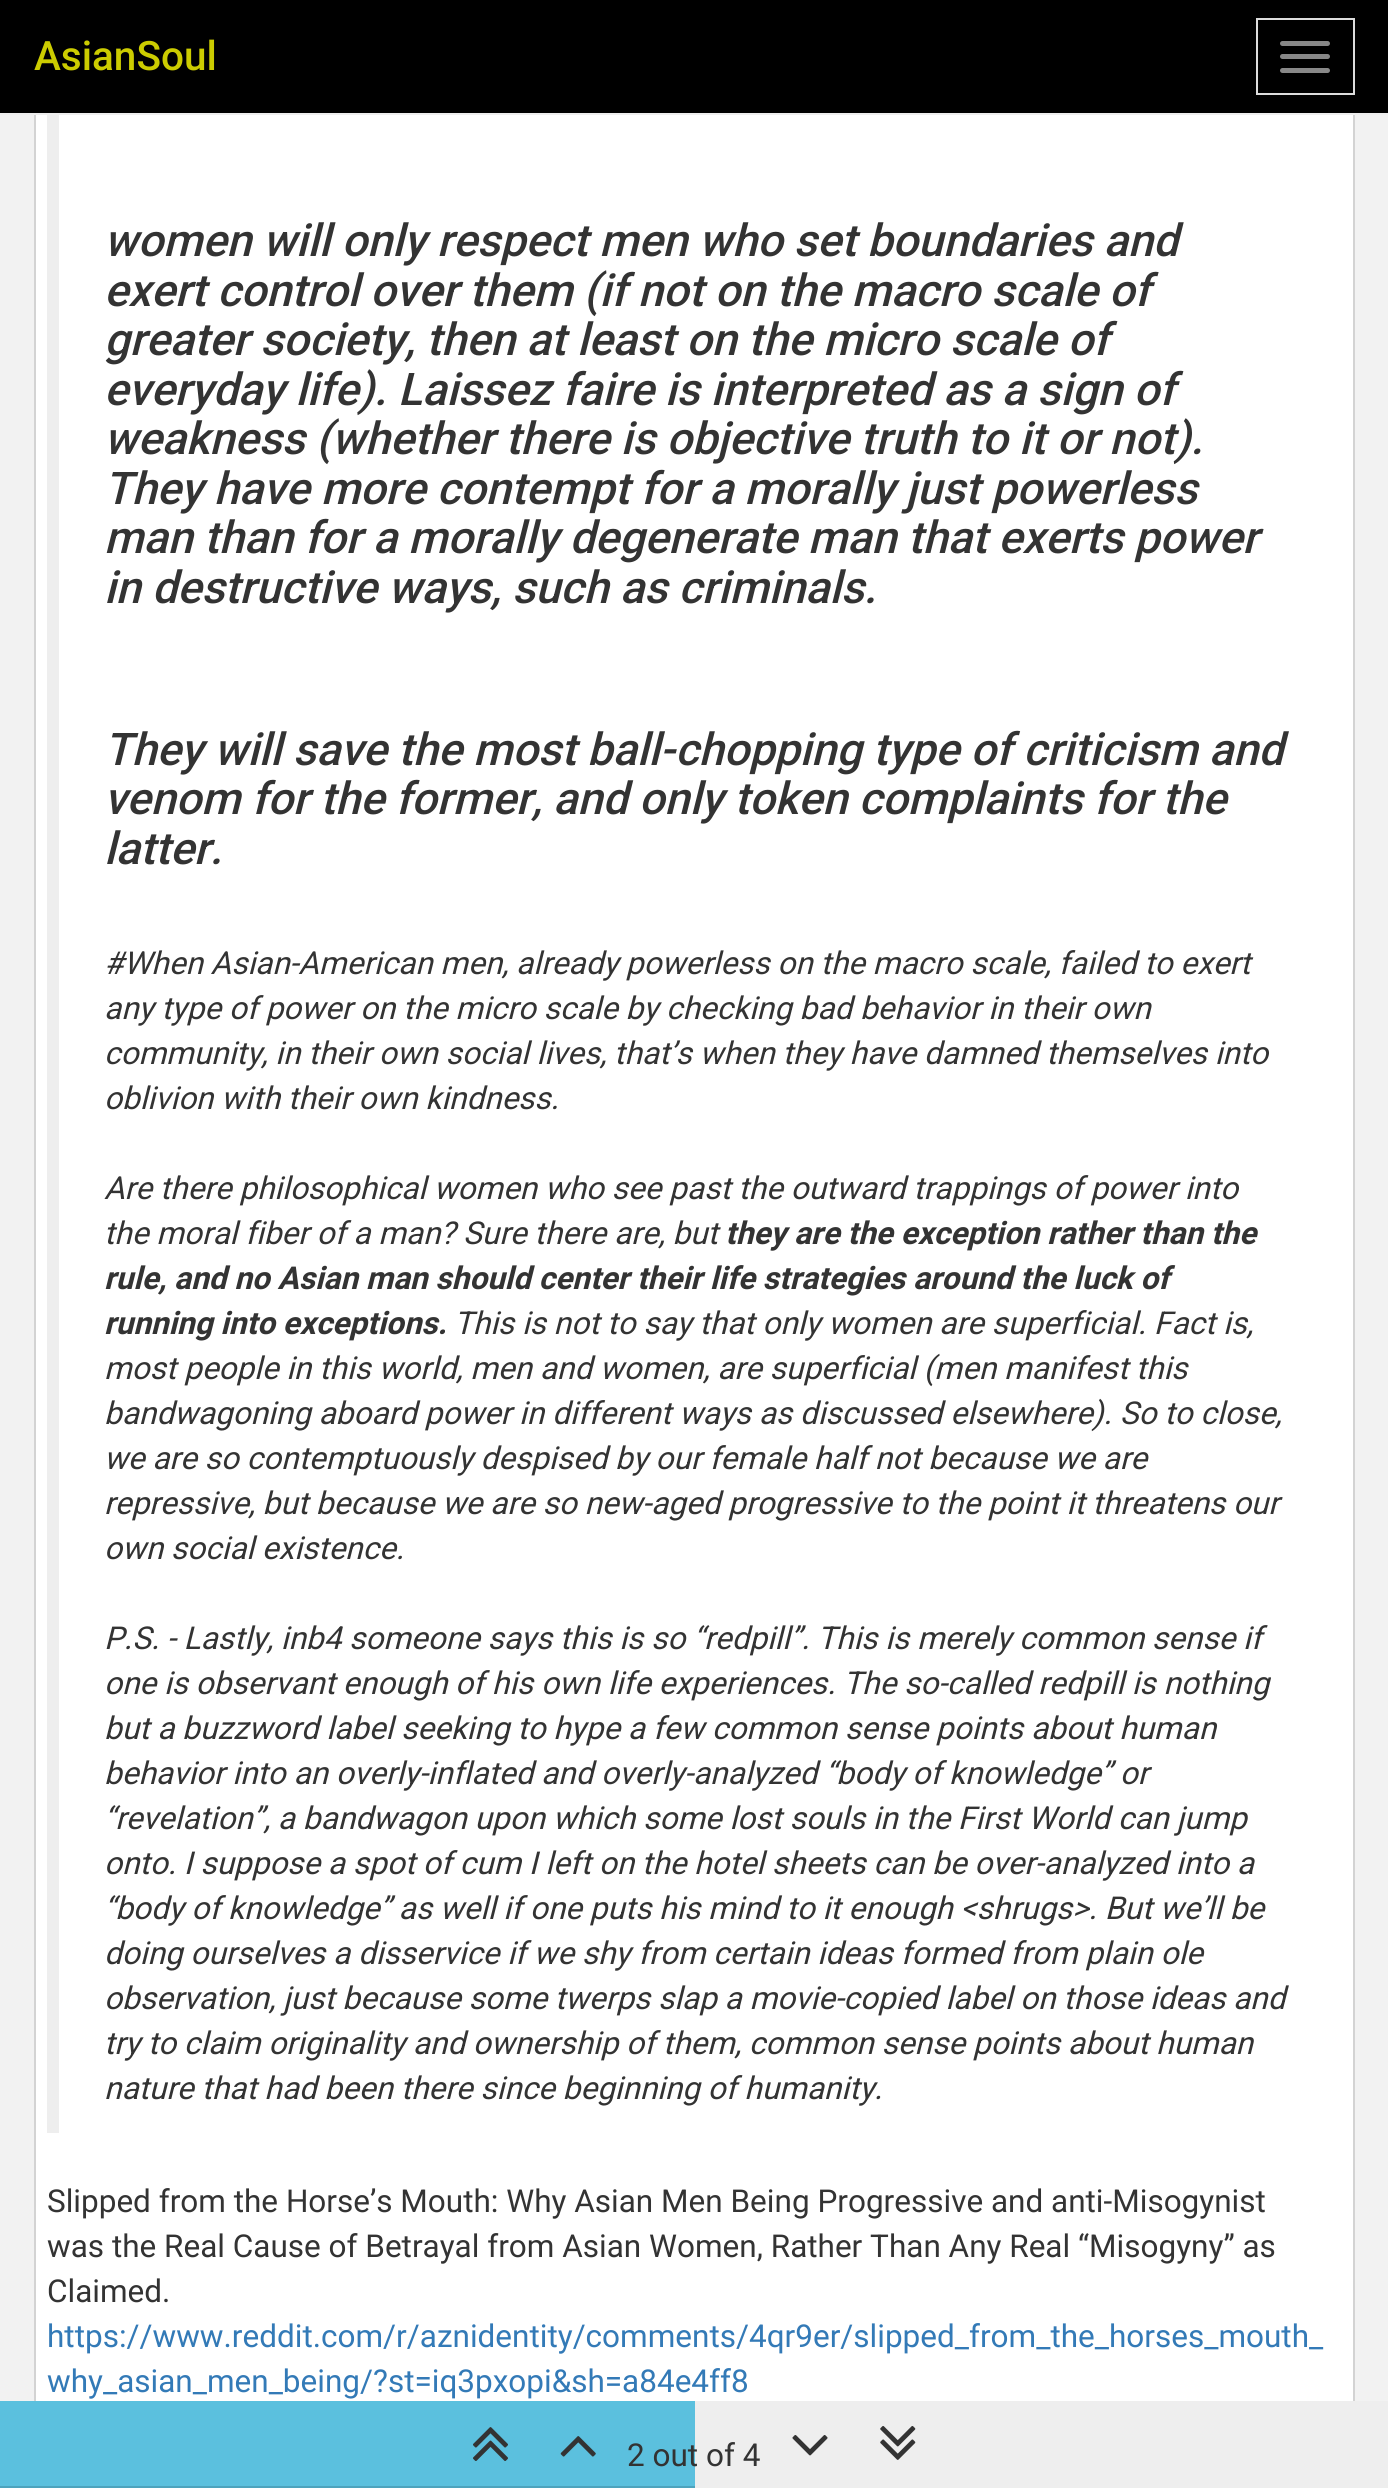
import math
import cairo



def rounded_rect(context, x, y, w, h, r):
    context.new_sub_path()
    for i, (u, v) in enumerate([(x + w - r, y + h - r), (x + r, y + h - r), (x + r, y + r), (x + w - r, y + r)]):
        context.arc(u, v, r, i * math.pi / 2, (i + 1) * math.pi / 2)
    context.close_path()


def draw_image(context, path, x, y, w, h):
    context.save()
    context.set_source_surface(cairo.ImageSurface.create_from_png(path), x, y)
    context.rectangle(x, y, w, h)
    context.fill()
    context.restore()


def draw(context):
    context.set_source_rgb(242 / 255, 242 / 255, 242 / 255)
    context.paint()
    context.set_source_rgb(1, 1, 1)
    context.rectangle(36, 115, 1317, 2286)
    context.fill()
    context.rectangle(35, -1, 1319, 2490)
    context.set_source_rgb(211 / 255, 211 / 255, 211 / 255)
    context.stroke()
    context.set_source_rgb(0, 0, 0)
    context.rectangle(0, 0, 1388, 113)
    context.fill()
    context.set_source_rgb(238 / 255, 238 / 255, 238 / 255)
    context.rectangle(0, 113, 1388, 2)
    context.fill()
    context.rectangle(1257, 19, 97, 75)
    context.set_source_rgb(221 / 255, 221 / 255, 221 / 255)
    context.stroke()
    context.set_source_rgb(136 / 255, 136 / 255, 136 / 255)
    rounded_rect(context, 1280, 41, 50, 5, 2.5)
    context.fill()
    rounded_rect(context, 1280, 54, 50, 5, 2.5)
    context.fill()
    rounded_rect(context, 1280, 68, 50, 5, 2.5)
    context.fill()
    context.set_source_rgb(238 / 255, 238 / 255, 238 / 255)
    context.rectangle(47, 115, 12, 2018)
    context.fill()
    context.rectangle(695, 2401, 693, 87)
    context.fill()
    context.set_source_rgb(91 / 255, 192 / 255, 222 / 255)
    context.rectangle(0, 2401, 695, 85)
    context.fill()
    context.set_source_rgb(77 / 255, 163 / 255, 189 / 255)
    context.rectangle(0, 2486, 695, 2)
    context.fill()
    draw_image(context, "images/1.png", 473, 2427, 35, 34)
    draw_image(context, "images/2.png", 560, 2436, 36, 21)
    draw_image(context, "images/3.png", 792, 2435, 36, 21)
    draw_image(context, "images/4.png", 880, 2426, 36, 34)
    context.select_font_face("Roboto Medium")
    context.set_font_size(40.5)
    context.set_source_rgb(204 / 255, 204 / 255, 0)
    context.move_to(34, 70)
    context.show_text("AsianSoul")
    context.select_font_face("Roboto Medium", cairo.FontSlant.ITALIC)
    context.set_font_size(45)
    context.set_source_rgb(51 / 255, 51 / 255, 51 / 255)
    context.move_to(104, 256)
    context.show_text("women will only respect men who set boundaries and")
    context.move_to(104, 306)
    context.show_text("exert control over them (if not on the macro scale of")
    context.move_to(104, 355)
    context.show_text("greater society, then at least on the micro scale of")
    context.move_to(104, 405)
    context.show_text("everyday life). Laissez faire is interpreted as a sign of")
    context.move_to(104, 454)
    context.show_text("weakness (whether there is objective truth to it or not).")
    context.move_to(104, 504)
    context.show_text("They have more contempt for a morally just powerless")
    context.move_to(104, 553)
    context.show_text("man than for a morally degenerate man that exerts power")
    context.move_to(104, 603)
    context.show_text("in destructive ways, such as criminals.")
    context.move_to(104, 765)
    context.show_text("They will save the most ball-chopping type of criticism and")
    context.move_to(104, 814)
    context.show_text("venom for the former, and only token complaints for the")
    context.move_to(104, 864)
    context.show_text("latter.")
    context.select_font_face("Roboto", cairo.FontSlant.ITALIC)
    context.set_font_size(31.5)
    context.move_to(104, 974)
    context.show_text("#When Asian-American men, already powerless on the macro scale, failed to exert")
    context.move_to(104, 1019)
    context.show_text("any type of power on the micro scale by checking bad behavior in their own")
    context.move_to(104, 1064)
    context.show_text("community, in their own social lives, that’s when they have damned themselves into")
    context.move_to(104, 1109)
    context.show_text("oblivion with their own kindness.")
    context.move_to(104, 1199)
    context.show_text("Are there philosophical women who see past the outward trappings of power into")
    context.move_to(104, 1244)
    context.show_text("the moral fiber of a man? Sure there are, but")
    context.select_font_face("Roboto", cairo.FontSlant.ITALIC, cairo.FontWeight.BOLD)
    context.move_to(725, 1244)
    context.show_text("they are the exception rather than the")
    context.move_to(104, 1289)
    context.show_text("rule, and no Asian man should center their life strategies around the luck of")
    context.move_to(104, 1334)
    context.show_text("running into exceptions.")
    context.select_font_face("Roboto", cairo.FontSlant.ITALIC)
    context.move_to(454, 1334)
    context.show_text("This is not to say that only women are superficial. Fact is,")
    context.move_to(104, 1379)
    context.show_text("most people in this world, men and women, are superficial (men manifest this")
    context.move_to(104, 1424)
    context.show_text("bandwagoning aboard power in different ways as discussed elsewhere). So to close,")
    context.move_to(104, 1469)
    context.show_text("we are so contemptuously despised by our female half not because we are")
    context.move_to(104, 1514)
    context.show_text("repressive, but because we are so new-aged progressive to the point it threatens our")
    context.move_to(104, 1559)
    context.show_text("own social existence.")
    context.move_to(104, 1649)
    context.show_text("P.S. - Lastly, inb4 someone says this is so “redpill”. This is merely common sense if")
    context.move_to(104, 1694)
    context.show_text("one is observant enough of his own life experiences. The so-called redpill is nothing")
    context.move_to(104, 1739)
    context.show_text("but a buzzword label seeking to hype a few common sense points about human")
    context.move_to(104, 1784)
    context.show_text("behavior into an overly-inflated and overly-analyzed “body of knowledge” or")
    context.move_to(104, 1829)
    context.show_text("“revelation”, a bandwagon upon which some lost souls in the First World can jump")
    context.move_to(104, 1874)
    context.show_text("onto. I suppose a spot of cum I left on the hotel sheets can be over-analyzed into a")
    context.move_to(104, 1919)
    context.show_text("“body of knowledge” as well if one puts his mind to it enough <shrugs>. But we’ll be")
    context.move_to(104, 1964)
    context.show_text("doing ourselves a disservice if we shy from certain ideas formed from plain ole")
    context.move_to(104, 2009)
    context.show_text("observation, just because some twerps slap a movie-copied label on those ideas and")
    context.move_to(104, 2054)
    context.show_text("try to claim originality and ownership of them, common sense points about human")
    context.move_to(104, 2099)
    context.show_text("nature that had been there since beginning of humanity.")
    context.select_font_face("Roboto")
    context.move_to(47, 2212)
    context.show_text("Slipped from the Horse’s Mouth: Why Asian Men Being Progressive and anti-Misogynist")
    context.move_to(47, 2257)
    context.show_text("was the Real Cause of Betrayal from Asian Women, Rather Than Any Real “Misogyny” as")
    context.move_to(47, 2302)
    context.show_text("Claimed.")
    context.set_source_rgb(51 / 255, 122 / 255, 183 / 255)
    context.move_to(47, 2347)
    context.show_text("https://www.reddit.com/r/aznidentity/comments/4qr9er/slipped_from_the_horses_mouth_")
    context.move_to(47, 2392)
    context.show_text("why_asian_men_being/?st=iq3pxopi&sh=a84e4ff8")
    context.set_source_rgb(51 / 255, 51 / 255, 51 / 255)
    context.move_to(627, 2466)
    context.show_text("2 out of 4")


surface = cairo.ImageSurface(cairo.Format.RGB24, 1388, 2488)
context = cairo.Context(surface)
options = cairo.FontOptions()
options.set_hint_metrics(cairo.HintMetrics.OFF)
options.set_hint_style(cairo.HintStyle.NONE)
context.set_font_options(options)
context.set_miter_limit(4)
draw(context)
surface.write_to_png("out.png")
